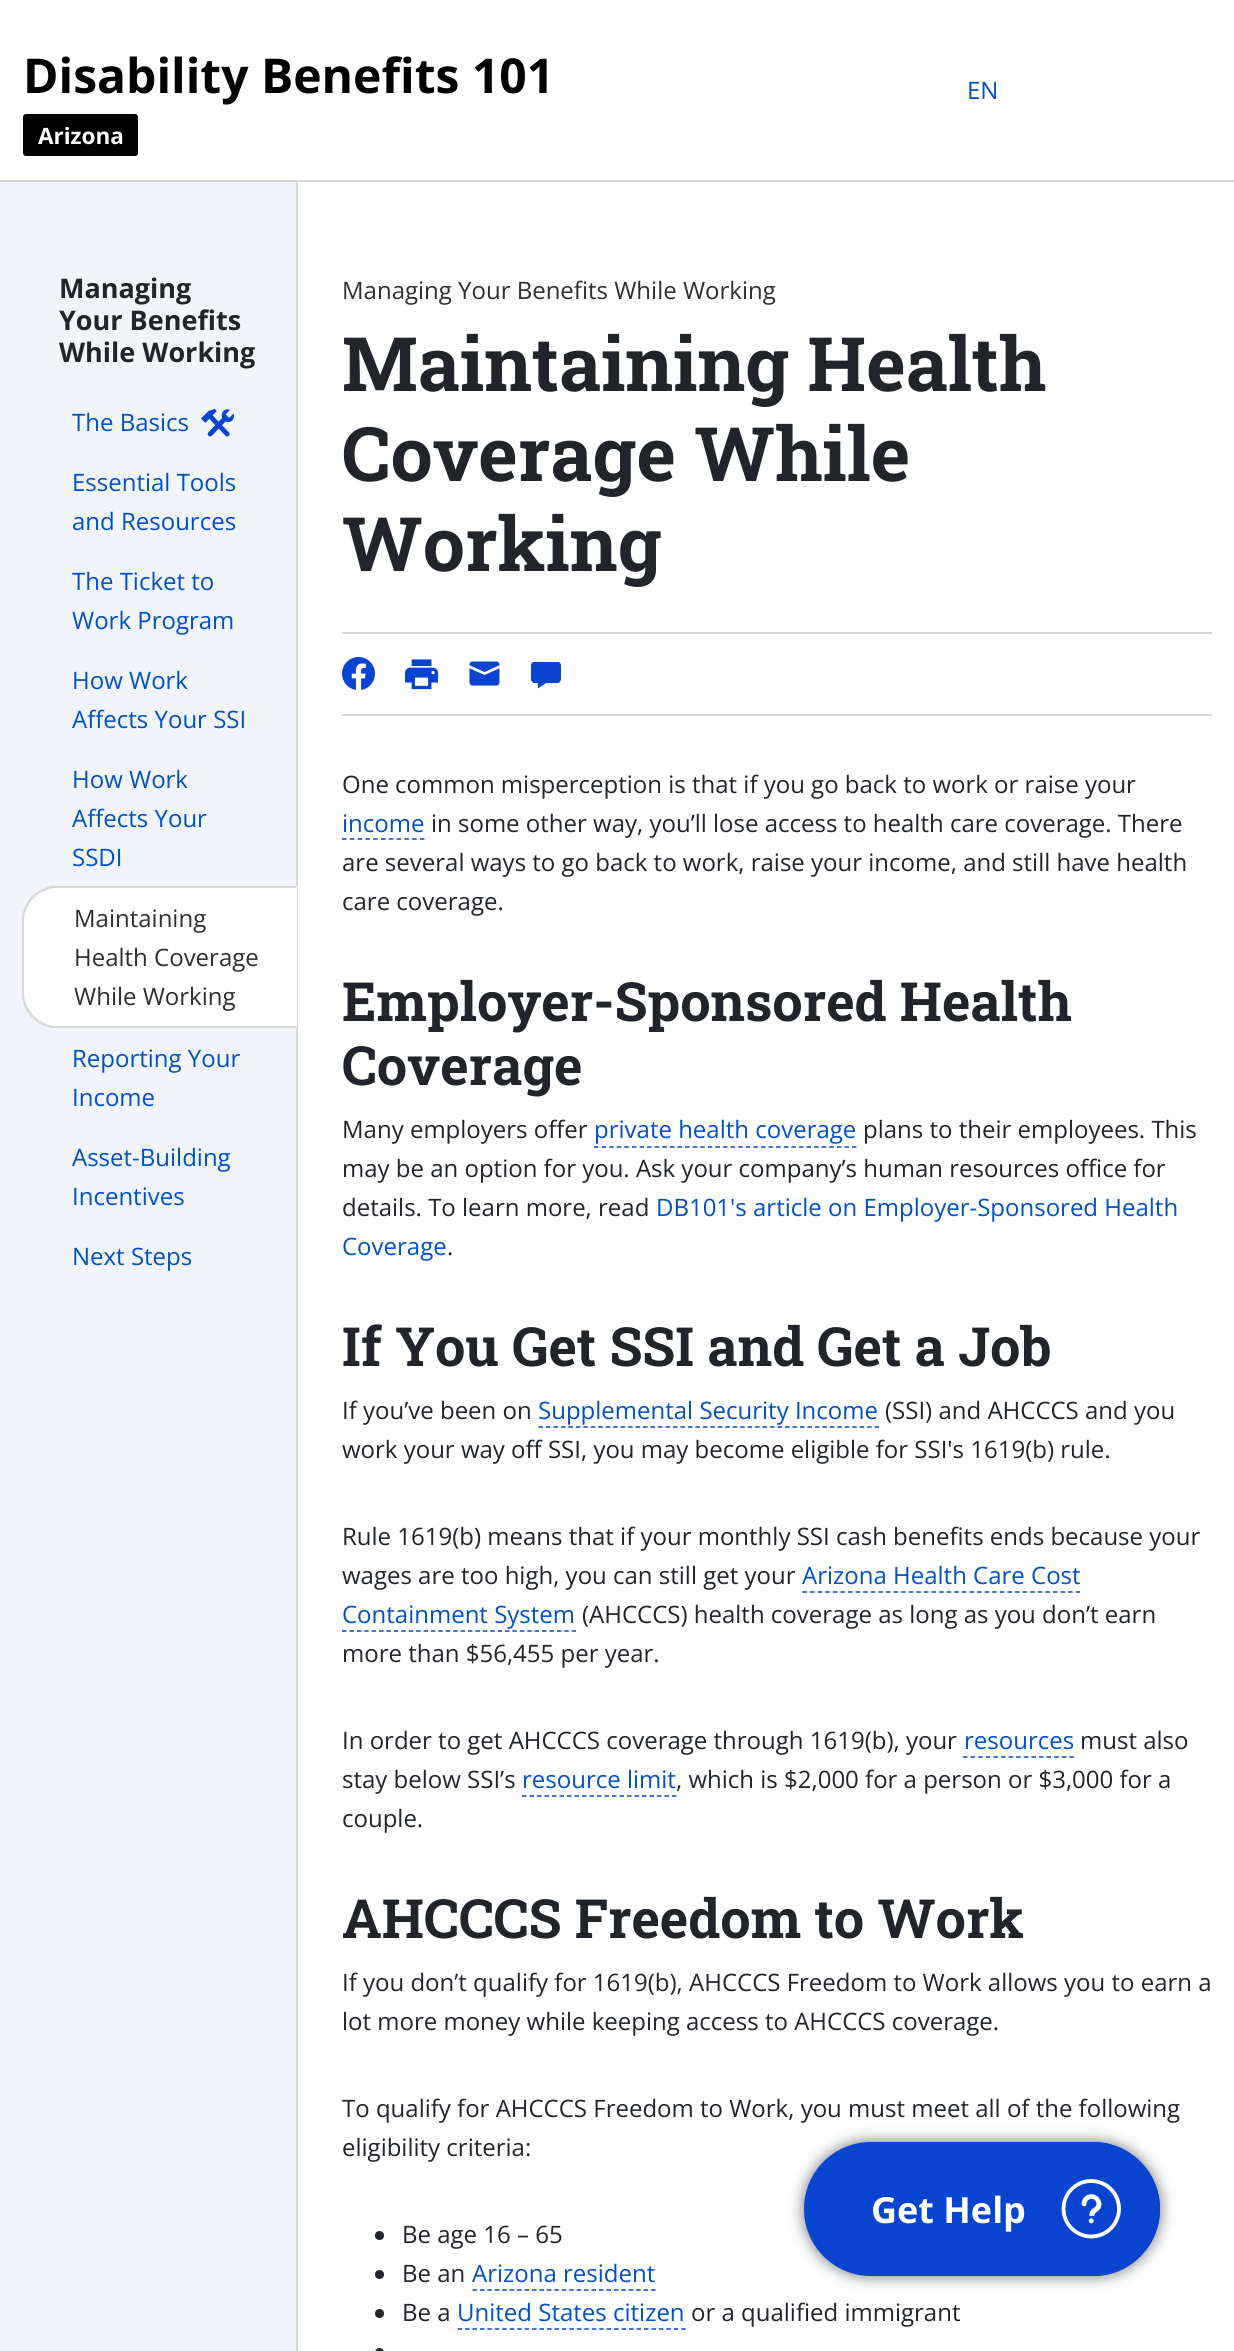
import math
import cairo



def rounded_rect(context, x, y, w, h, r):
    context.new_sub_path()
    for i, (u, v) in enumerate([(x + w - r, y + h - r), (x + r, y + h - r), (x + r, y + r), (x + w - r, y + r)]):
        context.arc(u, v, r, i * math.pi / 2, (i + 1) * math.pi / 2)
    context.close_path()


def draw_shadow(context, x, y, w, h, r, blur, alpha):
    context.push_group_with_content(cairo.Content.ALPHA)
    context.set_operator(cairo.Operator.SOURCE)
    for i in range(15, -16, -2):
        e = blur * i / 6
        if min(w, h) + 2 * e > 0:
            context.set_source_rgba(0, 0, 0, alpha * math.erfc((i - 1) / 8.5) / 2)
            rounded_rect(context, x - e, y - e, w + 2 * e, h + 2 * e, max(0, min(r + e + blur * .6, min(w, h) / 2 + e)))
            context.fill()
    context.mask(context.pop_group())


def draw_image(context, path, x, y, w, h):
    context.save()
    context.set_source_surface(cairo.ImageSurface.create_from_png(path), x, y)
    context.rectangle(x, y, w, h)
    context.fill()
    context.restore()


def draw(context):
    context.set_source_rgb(1, 1, 1)
    context.paint()
    context.set_source_rgb(0, 0, 0)
    rounded_rect(context, 23, 114, 115, 42, 3)
    context.fill()
    context.set_source_rgb(216 / 255, 216 / 255, 216 / 255)
    context.rectangle(298, 180, 936, 2)
    context.fill()
    context.set_source_rgb(241 / 255, 245 / 255, 249 / 255)
    context.rectangle(0, 182, 296, 2169)
    context.fill()
    context.set_source_rgb(216 / 255, 216 / 255, 216 / 255)
    context.rectangle(0, 180, 297, 2)
    context.fill()
    context.rectangle(296, 180, 2, 2171)
    context.fill()
    draw_image(context, "images/1.png", 201, 408, 33, 29)
    context.set_source_rgb(1, 1, 1)
    context.new_path()
    context.move_to(58, 887)
    context.line_to(297, 887)
    context.line_to(297, 1028)
    context.line_to(58, 1028)
    context.curve_to(38.5, 1028, 23, 1012.5, 23, 993)
    context.line_to(23, 922)
    context.curve_to(23, 902.5, 38.5, 887, 58, 887)
    context.close_path()
    context.fill()
    context.set_source_rgb(216 / 255, 216 / 255, 216 / 255)
    context.new_path()
    context.move_to(57, 888)
    context.curve_to(48, 888, 40, 892, 34, 898)
    context.line_to(32, 896)
    context.curve_to(37, 891, 44, 888, 51, 886)
    context.line_to(297, 886)
    context.line_to(296, 888)
    context.close_path()
    context.fill()
    context.set_source_rgb(1, 1, 1)
    context.new_path()
    context.move_to(297, 886)
    context.line_to(296, 888)
    context.line_to(296, 1026)
    context.line_to(297, 1028)
    context.close_path()
    context.fill()
    context.set_source_rgb(216 / 255, 216 / 255, 216 / 255)
    context.new_path()
    context.move_to(297, 1028)
    context.line_to(51, 1028)
    context.curve_to(44, 1026, 37, 1023, 32, 1018)
    context.line_to(34, 1016)
    context.curve_to(40, 1022, 48, 1026, 57, 1026)
    context.line_to(296, 1026)
    context.close_path()
    context.fill()
    context.new_path()
    context.move_to(22, 915)
    context.curve_to(24, 908, 27, 901, 32, 896)
    context.line_to(34, 898)
    context.curve_to(28, 904, 24, 912, 24, 921)
    context.line_to(24, 993)
    context.curve_to(24, 1002, 28, 1010, 34, 1016)
    context.line_to(32, 1018)
    context.curve_to(27, 1013, 24, 1006, 22, 999)
    context.close_path()
    context.fill()
    context.rectangle(342, 632, 870, 2)
    context.fill()
    context.rectangle(342, 714, 870, 2)
    context.fill()
    draw_image(context, "images/2.png", 342, 657, 33, 33)
    draw_image(context, "images/3.png", 405, 659, 34, 31)
    draw_image(context, "images/4.png", 469, 661, 31, 25)
    draw_image(context, "images/5.png", 531, 662, 30, 27)
    context.new_path()
    context.move_to(342, 839)
    context.line_to(424.5, 839)
    context.set_source_rgb(8 / 255, 68 / 255, 207 / 255)
    context.set_line_width(1.5)
    context.set_dash([4.5, 3.3])
    context.stroke()
    context.new_path()
    context.move_to(594, 1147)
    context.line_to(856.5, 1147)
    context.set_dash([4.5, 3.09])
    context.stroke()
    context.new_path()
    context.move_to(538.5, 1427)
    context.line_to(879, 1427)
    context.set_dash([4.5, 2.97])
    context.stroke()
    context.new_path()
    context.move_to(802.5, 1592)
    context.line_to(1080, 1592)
    context.set_dash([4.5, 3.09])
    context.stroke()
    context.new_path()
    context.move_to(342, 1631)
    context.line_to(576, 1631)
    context.set_dash([4.5, 2.91])
    context.stroke()
    context.new_path()
    context.move_to(963, 1757)
    context.line_to(1074, 1757)
    context.set_dash([4.5, 3.1])
    context.stroke()
    context.new_path()
    context.move_to(522, 1796)
    context.line_to(676.5, 1796)
    context.set_dash([4.5, 3])
    context.stroke()
    context.set_source_rgb(33 / 255, 37 / 255, 41 / 255)
    context.arc(379.5, 2235.5, 4.5, 0, 2 * math.pi)
    context.fill()
    context.arc(379.5, 2274.5, 4.5, 0, 2 * math.pi)
    context.fill()
    context.new_path()
    context.move_to(472.5, 2290)
    context.line_to(655.5, 2290)
    context.set_source_rgb(8 / 255, 68 / 255, 207 / 255)
    context.set_dash([4.5, 2.94])
    context.stroke()
    context.set_source_rgb(33 / 255, 37 / 255, 41 / 255)
    context.arc(379.5, 2313.5, 4.5, 0, 2 * math.pi)
    context.fill()
    context.new_path()
    context.move_to(457.5, 2329)
    context.line_to(685.5, 2329)
    context.set_source_rgb(8 / 255, 68 / 255, 207 / 255)
    context.set_dash([4.5, 2.96])
    context.stroke()
    context.set_source_rgb(33 / 255, 37 / 255, 41 / 255)
    rounded_rect(context, 375, 2348, 9, 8, 4.5)
    context.fill()
    context.set_source_rgb(108 / 255, 117 / 255, 125 / 255)
    draw_shadow(context, 804, 2142, 356, 134, 67, 7.5, 1)
    context.set_source_rgb(8 / 255, 68 / 255, 207 / 255)
    rounded_rect(context, 804, 2142, 356, 134, 67)
    context.fill()
    draw_image(context, "images/6.png", 1061, 2142, 99, 134)
    context.select_font_face("Open Sans", cairo.FontSlant.NORMAL, cairo.FontWeight.BOLD)
    context.set_font_size(48)
    context.set_source_rgb(0, 0, 0)
    context.move_to(23, 93)
    context.show_text("Disability Benefits 101")
    context.set_font_size(22.5)
    context.set_source_rgb(1, 1, 1)
    context.move_to(38, 144)
    context.show_text("Arizona")
    context.select_font_face("Open Sans")
    context.set_font_size(24)
    context.set_source_rgb(0, 80 / 255, 198 / 255)
    context.move_to(967, 99)
    context.show_text("EN")
    context.select_font_face("Open Sans", cairo.FontSlant.NORMAL, cairo.FontWeight.BOLD)
    context.set_font_size(27)
    context.set_source_rgb(33 / 255, 37 / 255, 41 / 255)
    context.move_to(59, 298)
    context.show_text("Managing")
    context.move_to(59, 330)
    context.show_text("Your Benefits")
    context.move_to(59, 362)
    context.show_text("While Working")
    context.select_font_face("Open Sans")
    context.set_font_size(24)
    context.set_source_rgb(0, 80 / 255, 198 / 255)
    context.move_to(72, 431)
    context.show_text("The Basics")
    context.move_to(72, 491)
    context.show_text("Essential Tools")
    context.move_to(72, 530)
    context.show_text("and Resources")
    context.move_to(72, 590)
    context.show_text("The Ticket to")
    context.move_to(72, 629)
    context.show_text("Work Program")
    context.move_to(72, 689)
    context.show_text("How Work")
    context.move_to(72, 728)
    context.show_text("Affects Your SSI")
    context.move_to(72, 788)
    context.show_text("How Work")
    context.move_to(72, 827)
    context.show_text("Affects Your")
    context.move_to(72, 866)
    context.show_text("SSDI")
    context.set_source_rgb(47 / 255, 47 / 255, 47 / 255)
    context.move_to(74, 927)
    context.show_text("Maintaining")
    context.move_to(74, 966)
    context.show_text("Health Coverage")
    context.move_to(74, 1005)
    context.show_text("While Working")
    context.set_source_rgb(0, 80 / 255, 198 / 255)
    context.move_to(72, 1067)
    context.show_text("Reporting Your")
    context.move_to(72, 1106)
    context.show_text("Income")
    context.move_to(72, 1166)
    context.show_text("Asset-Building")
    context.move_to(72, 1205)
    context.show_text("Incentives")
    context.move_to(72, 1265)
    context.show_text("Next Steps")
    context.set_source_rgb(47 / 255, 47 / 255, 47 / 255)
    context.move_to(342, 299)
    context.show_text("Managing Your Benefits While Working")
    context.select_font_face("Roboto Slab", cairo.FontSlant.NORMAL, cairo.FontWeight.BOLD)
    context.set_font_size(75)
    context.set_source_rgb(33 / 255, 37 / 255, 41 / 255)
    context.move_to(342, 391)
    context.show_text("Maintaining Health")
    context.move_to(342, 481)
    context.show_text("Coverage While")
    context.move_to(342, 571)
    context.show_text("Working")
    context.select_font_face("Open Sans")
    context.set_font_size(24)
    context.move_to(342, 793)
    context.show_text("One common misperception is that if you go back to work or raise your")
    context.set_source_rgb(0, 80 / 255, 198 / 255)
    context.move_to(342, 832)
    context.show_text("income")
    context.set_source_rgb(33 / 255, 37 / 255, 41 / 255)
    context.move_to(431, 832)
    context.show_text("in some other way, you’ll lose access to health care coverage. There")
    context.move_to(342, 871)
    context.show_text("are several ways to go back to work, raise your income, and still have health")
    context.move_to(342, 910)
    context.show_text("care coverage.")
    context.select_font_face("Roboto Slab", cairo.FontSlant.NORMAL, cairo.FontWeight.BOLD)
    context.set_font_size(54)
    context.move_to(342, 1021)
    context.show_text("Employer-Sponsored Health")
    context.move_to(342, 1085)
    context.show_text("Coverage")
    context.select_font_face("Open Sans")
    context.set_font_size(24)
    context.move_to(342, 1138)
    context.show_text("Many employers offer")
    context.set_source_rgb(0, 80 / 255, 198 / 255)
    context.move_to(594, 1138)
    context.show_text("private health coverage")
    context.set_source_rgb(33 / 255, 37 / 255, 41 / 255)
    context.move_to(863, 1138)
    context.show_text("plans to their employees. This")
    context.move_to(342, 1177)
    context.show_text("may be an option for you. Ask your company’s human resources office for")
    context.move_to(342, 1216)
    context.show_text("details. To learn more, read")
    context.set_source_rgb(0, 80 / 255, 198 / 255)
    context.move_to(656, 1216)
    context.show_text("DB101's article on Employer-Sponsored Health")
    context.move_to(342, 1255)
    context.show_text("Coverage")
    context.set_source_rgb(33 / 255, 37 / 255, 41 / 255)
    context.move_to(447, 1255)
    context.show_text(".")
    context.select_font_face("Roboto Slab", cairo.FontSlant.NORMAL, cairo.FontWeight.BOLD)
    context.set_font_size(54)
    context.move_to(342, 1366)
    context.show_text("If You Get SSI and Get a Job")
    context.select_font_face("Open Sans")
    context.set_font_size(24)
    context.move_to(342, 1419)
    context.show_text("If you’ve been on")
    context.set_source_rgb(0, 80 / 255, 198 / 255)
    context.move_to(538, 1419)
    context.show_text("Supplemental Security Income")
    context.set_source_rgb(33 / 255, 37 / 255, 41 / 255)
    context.move_to(885, 1419)
    context.show_text("(SSI) and AHCCCS and you")
    context.move_to(342, 1458)
    context.show_text("work your way off SSI, you may become eligible for SSI's 1619(b) rule.")
    context.move_to(342, 1545)
    context.show_text("Rule 1619(b) means that if your monthly SSI cash benefits ends because your")
    context.move_to(342, 1584)
    context.show_text("wages are too high, you can still get your")
    context.set_source_rgb(0, 80 / 255, 198 / 255)
    context.move_to(802, 1584)
    context.show_text("Arizona Health Care Cost")
    context.move_to(342, 1623)
    context.show_text("Containment System")
    context.set_source_rgb(33 / 255, 37 / 255, 41 / 255)
    context.move_to(582, 1623)
    context.show_text("(AHCCCS) health coverage as long as you don’t earn")
    context.move_to(342, 1662)
    context.show_text("more than $56,455 per year.")
    context.move_to(342, 1749)
    context.show_text("In order to get AHCCCS coverage through 1619(b), your")
    context.set_source_rgb(0, 80 / 255, 198 / 255)
    context.move_to(964, 1749)
    context.show_text("resources")
    context.set_source_rgb(33 / 255, 37 / 255, 41 / 255)
    context.move_to(1080, 1749)
    context.show_text("must also")
    context.move_to(342, 1788)
    context.show_text("stay below SSI’s")
    context.set_source_rgb(0, 80 / 255, 198 / 255)
    context.move_to(522, 1788)
    context.show_text("resource limit")
    context.set_source_rgb(33 / 255, 37 / 255, 41 / 255)
    context.move_to(676, 1788)
    context.show_text(", which is $2,000 for a person or $3,000 for a")
    context.move_to(342, 1827)
    context.show_text("couple.")
    context.select_font_face("Roboto Slab", cairo.FontSlant.NORMAL, cairo.FontWeight.BOLD)
    context.set_font_size(54)
    context.move_to(342, 1938)
    context.show_text("AHCCCS Freedom to Work")
    context.select_font_face("Open Sans")
    context.set_font_size(24)
    context.move_to(342, 1991)
    context.show_text("If you don’t qualify for 1619(b), AHCCCS Freedom to Work allows you to earn a")
    context.move_to(342, 2030)
    context.show_text("lot more money while keeping access to AHCCCS coverage.")
    context.move_to(342, 2117)
    context.show_text("To qualify for AHCCCS Freedom to Work, you must meet all of the following")
    context.move_to(342, 2156)
    context.show_text("eligibility criteria:")
    context.move_to(402, 2243)
    context.show_text("Be age 16 – 65")
    context.move_to(402, 2282)
    context.show_text("Be an")
    context.set_source_rgb(0, 80 / 255, 198 / 255)
    context.move_to(472, 2282)
    context.show_text("Arizona resident")
    context.set_source_rgb(33 / 255, 37 / 255, 41 / 255)
    context.move_to(402, 2321)
    context.show_text("Be a")
    context.set_source_rgb(0, 80 / 255, 198 / 255)
    context.move_to(457, 2321)
    context.show_text("United States citizen")
    context.set_source_rgb(33 / 255, 37 / 255, 41 / 255)
    context.move_to(691, 2321)
    context.show_text("or a qualified immigrant")
    context.select_font_face("Open Sans", cairo.FontSlant.NORMAL, cairo.FontWeight.BOLD)
    context.set_font_size(36)
    context.set_source_rgb(1, 1, 1)
    context.move_to(871, 2223)
    context.show_text("Get Help")


surface = cairo.ImageSurface(cairo.Format.RGB24, 1234, 2351)
context = cairo.Context(surface)
options = cairo.FontOptions()
options.set_hint_metrics(cairo.HintMetrics.OFF)
options.set_hint_style(cairo.HintStyle.NONE)
context.set_font_options(options)
context.set_miter_limit(4)
draw(context)
surface.write_to_png("out.png")
